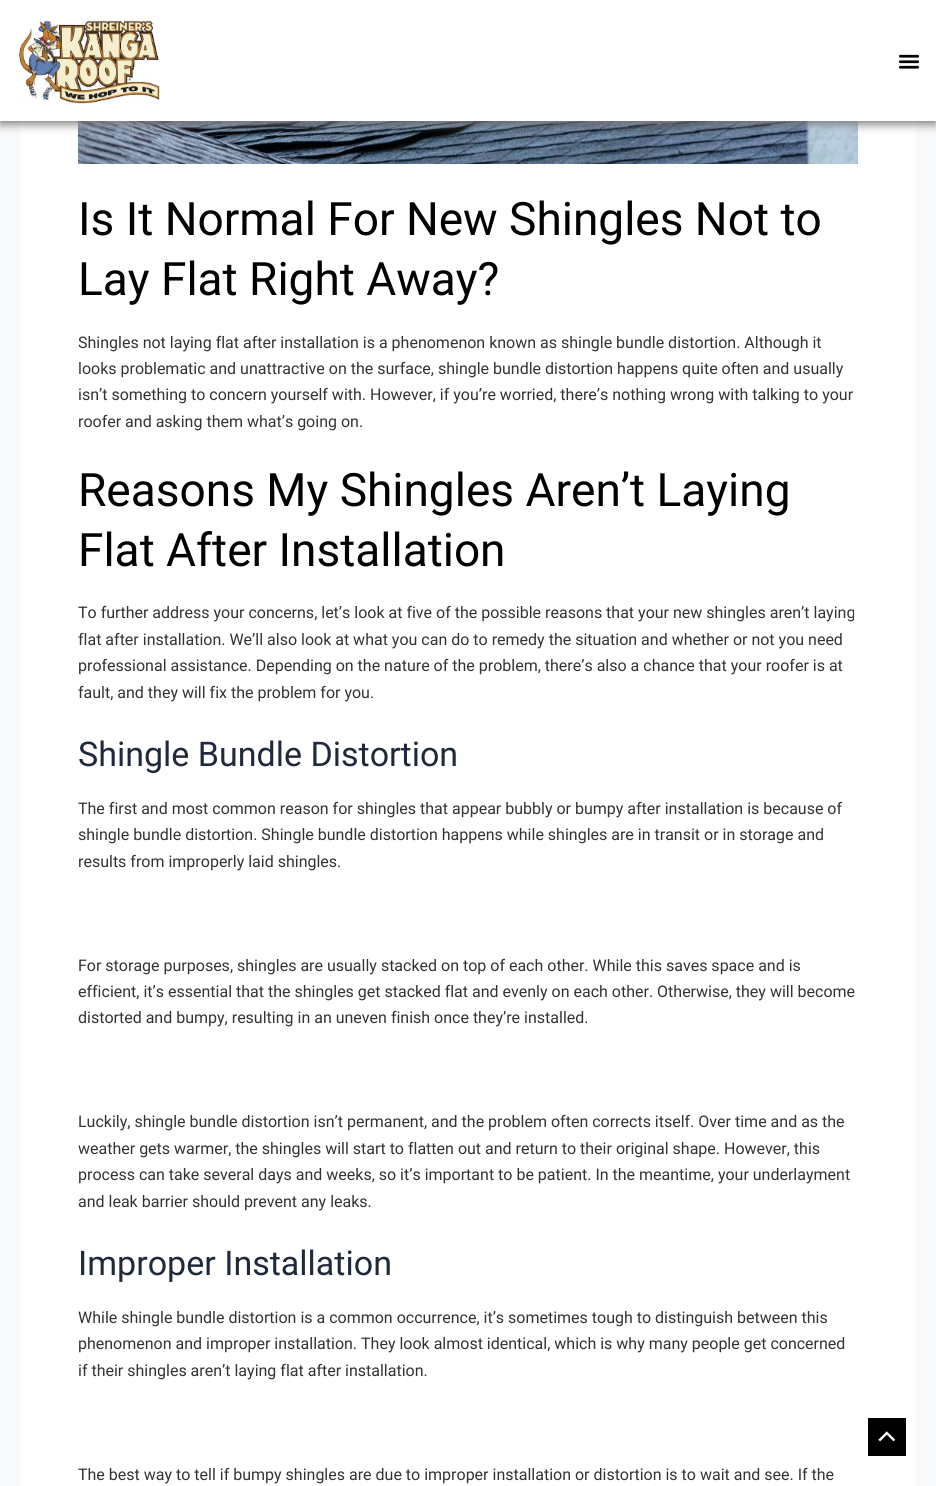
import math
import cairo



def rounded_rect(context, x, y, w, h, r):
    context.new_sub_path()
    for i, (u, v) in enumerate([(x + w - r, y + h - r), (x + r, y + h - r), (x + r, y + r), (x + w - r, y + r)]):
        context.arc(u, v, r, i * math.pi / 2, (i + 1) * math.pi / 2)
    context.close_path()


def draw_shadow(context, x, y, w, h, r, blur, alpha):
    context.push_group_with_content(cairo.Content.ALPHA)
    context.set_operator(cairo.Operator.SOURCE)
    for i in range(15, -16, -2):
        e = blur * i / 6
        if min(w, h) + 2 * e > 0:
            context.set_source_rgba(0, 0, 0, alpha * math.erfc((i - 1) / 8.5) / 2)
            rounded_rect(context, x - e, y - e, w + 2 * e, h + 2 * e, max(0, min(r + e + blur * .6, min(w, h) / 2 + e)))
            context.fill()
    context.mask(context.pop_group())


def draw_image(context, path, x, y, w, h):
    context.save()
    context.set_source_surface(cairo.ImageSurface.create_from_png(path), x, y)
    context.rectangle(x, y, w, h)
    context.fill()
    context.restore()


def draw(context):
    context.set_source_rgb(249 / 255, 250 / 255, 251 / 255)
    context.paint()
    context.set_source_rgb(1, 1, 1)
    context.rectangle(20, 121, 896, 1365)
    context.fill()
    draw_image(context, "images/3.png", 78, 121, 780, 43)
    context.set_source_rgb(119 / 255, 119 / 255, 119 / 255)
    draw_shadow(context, 0, 3, 936, 121, 0, 5, 1)
    context.set_source_rgb(1, 1, 1)
    context.rectangle(0, 0, 936, 121)
    context.fill()
    draw_image(context, "images/1.png", 19, 20, 141, 84)
    draw_image(context, "images/2.png", 898, 54, 22, 15)
    context.set_source_rgb(0, 0, 0)
    context.rectangle(868, 1418, 38, 38)
    context.fill()
    draw_image(context, "images/4.png", 878, 1431, 18, 11)
    context.select_font_face("Roboto")
    context.set_font_size(46)
    context.set_source_rgb(1 / 255, 1 / 255, 1 / 255)
    context.move_to(78, 235)
    context.show_text("Is It Normal For New Shingles Not to")
    context.move_to(78, 295)
    context.show_text("Lay Flat Right Away?")
    context.set_font_size(16)
    context.set_source_rgb(51 / 255, 51 / 255, 51 / 255)
    context.move_to(78, 348)
    context.show_text("Shingles not laying flat after installation is a phenomenon known as shingle bundle distortion. Although it")
    context.move_to(78, 374)
    context.show_text("looks problematic and unattractive on the surface, shingle bundle distortion happens quite often and usually")
    context.move_to(78, 400)
    context.show_text("isn’t something to concern yourself with. However, if you’re worried, there’s nothing wrong with talking to your")
    context.move_to(78, 427)
    context.show_text("roofer and asking them what’s going on.")
    context.set_font_size(46)
    context.set_source_rgb(1 / 255, 1 / 255, 1 / 255)
    context.move_to(78, 506)
    context.show_text("Reasons My Shingles Aren’t Laying")
    context.move_to(78, 566)
    context.show_text("Flat After Installation")
    context.set_font_size(16)
    context.set_source_rgb(51 / 255, 51 / 255, 51 / 255)
    context.move_to(78, 618)
    context.show_text("To further address your concerns, let’s look at five of the possible reasons that your new shingles aren’t laying")
    context.move_to(78, 645)
    context.show_text("flat after installation. We’ll also look at what you can do to remedy the situation and whether or not you need")
    context.move_to(78, 671)
    context.show_text("professional assistance. Depending on the nature of the problem, there’s also a chance that your roofer is at")
    context.move_to(78, 698)
    context.show_text("fault, and they will fix the problem for you.")
    context.set_font_size(34)
    context.set_source_rgb(30 / 255, 41 / 255, 59 / 255)
    context.move_to(78, 766)
    context.show_text("Shingle Bundle Distortion")
    context.set_font_size(16)
    context.set_source_rgb(51 / 255, 51 / 255, 51 / 255)
    context.move_to(78, 814)
    context.show_text("The first and most common reason for shingles that appear bubbly or bumpy after installation is because of")
    context.move_to(78, 840)
    context.show_text("shingle bundle distortion. Shingle bundle distortion happens while shingles are in transit or in storage and")
    context.move_to(78, 867)
    context.show_text("results from improperly laid shingles.")
    context.move_to(78, 971)
    context.show_text("For storage purposes, shingles are usually stacked on top of each other. While this saves space and is")
    context.move_to(78, 997)
    context.show_text("efficient, it’s essential that the shingles get stacked flat and evenly on each other. Otherwise, they will become")
    context.move_to(78, 1023)
    context.show_text("distorted and bumpy, resulting in an uneven finish once they’re installed.")
    context.move_to(78, 1127)
    context.show_text("Luckily, shingle bundle distortion isn’t permanent, and the problem often corrects itself. Over time and as the")
    context.move_to(78, 1154)
    context.show_text("weather gets warmer, the shingles will start to flatten out and return to their original shape. However, this")
    context.move_to(78, 1180)
    context.show_text("process can take several days and weeks, so it’s important to be patient. In the meantime, your underlayment")
    context.move_to(78, 1207)
    context.show_text("and leak barrier should prevent any leaks.")
    context.set_font_size(34)
    context.set_source_rgb(30 / 255, 41 / 255, 59 / 255)
    context.move_to(78, 1275)
    context.show_text("Improper Installation")
    context.set_font_size(16)
    context.set_source_rgb(51 / 255, 51 / 255, 51 / 255)
    context.move_to(78, 1323)
    context.show_text("While shingle bundle distortion is a common occurrence, it’s sometimes tough to distinguish between this")
    context.move_to(78, 1349)
    context.show_text("phenomenon and improper installation. They look almost identical, which is why many people get concerned")
    context.move_to(78, 1376)
    context.show_text("if their shingles aren’t laying flat after installation.")
    context.move_to(78, 1480)
    context.show_text("The best way to tell if bumpy shingles are due to improper installation or distortion is to wait and see. If the")


surface = cairo.ImageSurface(cairo.Format.RGB24, 936, 1486)
context = cairo.Context(surface)
options = cairo.FontOptions()
options.set_hint_metrics(cairo.HintMetrics.OFF)
options.set_hint_style(cairo.HintStyle.NONE)
context.set_font_options(options)
context.set_miter_limit(4)
draw(context)
surface.write_to_png("out.png")
